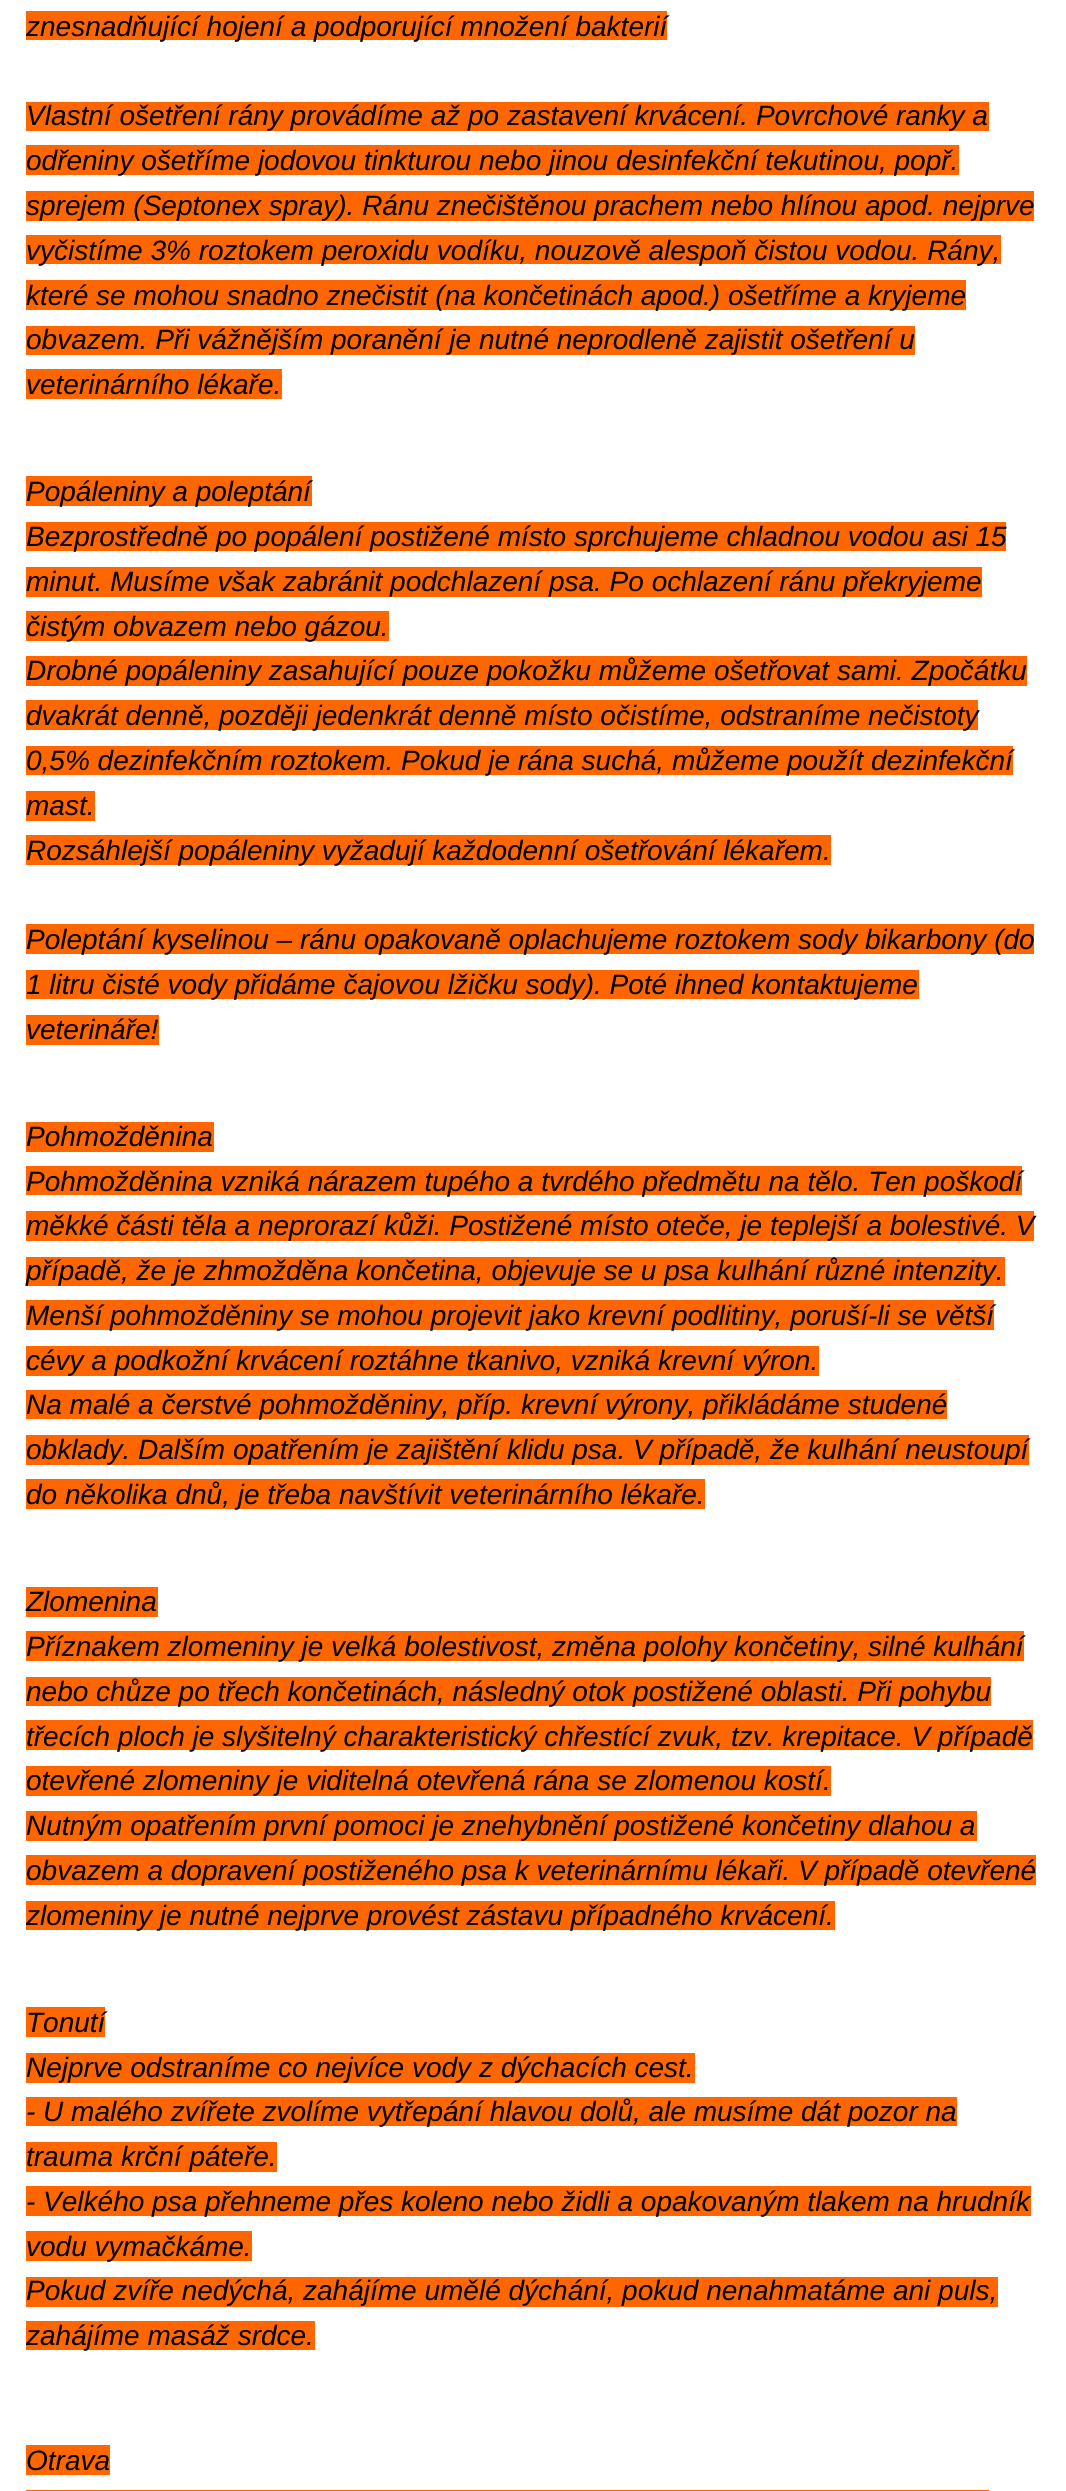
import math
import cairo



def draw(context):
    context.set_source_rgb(1, 1, 1)
    context.paint()
    context.set_source_rgb(1, 102 / 255, 0)
    context.rectangle(26, 11, 641, 29)
    context.fill()
    context.rectangle(26, 102, 963, 29)
    context.fill()
    context.rectangle(26, 145, 933, 30)
    context.fill()
    context.rectangle(26, 191, 1008, 30)
    context.fill()
    context.rectangle(26, 235, 975, 29)
    context.fill()
    context.rectangle(26, 280, 940, 30)
    context.fill()
    context.rectangle(26, 326, 889, 29)
    context.fill()
    context.rectangle(26, 369, 256, 30)
    context.fill()
    context.rectangle(26, 476, 286, 30)
    context.fill()
    context.rectangle(26, 522, 980, 29)
    context.fill()
    context.rectangle(26, 567, 956, 30)
    context.fill()
    context.rectangle(26, 611, 363, 30)
    context.fill()
    context.rectangle(26, 656, 1001, 30)
    context.fill()
    context.rectangle(26, 700, 952, 30)
    context.fill()
    context.rectangle(26, 746, 987, 29)
    context.fill()
    context.rectangle(26, 791, 69, 30)
    context.fill()
    context.rectangle(26, 835, 805, 30)
    context.fill()
    context.rectangle(26, 924, 1008, 30)
    context.fill()
    context.rectangle(26, 970, 893, 29)
    context.fill()
    context.rectangle(26, 1015, 133, 30)
    context.fill()
    context.rectangle(26, 1122, 188, 30)
    context.fill()
    context.rectangle(26, 1166, 996, 29)
    context.fill()
    context.rectangle(26, 1211, 1008, 30)
    context.fill()
    context.rectangle(26, 1257, 979, 29)
    context.fill()
    context.rectangle(26, 1300, 968, 30)
    context.fill()
    context.rectangle(26, 1346, 793, 30)
    context.fill()
    context.rectangle(26, 1390, 921, 29)
    context.fill()
    context.rectangle(26, 1435, 1003, 30)
    context.fill()
    context.rectangle(26, 1479, 679, 30)
    context.fill()
    context.rectangle(26, 1587, 132, 30)
    context.fill()
    context.rectangle(26, 1631, 998, 30)
    context.fill()
    context.rectangle(26, 1677, 965, 29)
    context.fill()
    context.rectangle(26, 1720, 1007, 30)
    context.fill()
    context.rectangle(26, 1766, 805, 30)
    context.fill()
    context.rectangle(26, 1811, 951, 30)
    context.fill()
    context.rectangle(26, 1855, 1010, 30)
    context.fill()
    context.rectangle(26, 1901, 809, 29)
    context.fill()
    context.rectangle(26, 2007, 79, 30)
    context.fill()
    context.rectangle(26, 2053, 669, 30)
    context.fill()
    context.rectangle(26, 2097, 931, 29)
    context.fill()
    context.rectangle(26, 2142, 251, 30)
    context.fill()
    context.rectangle(26, 2186, 1005, 30)
    context.fill()
    context.rectangle(26, 2231, 226, 30)
    context.fill()
    context.rectangle(26, 2277, 972, 30)
    context.fill()
    context.rectangle(26, 2321, 289, 29)
    context.fill()
    context.rectangle(26, 2445, 84, 30)
    context.fill()
    context.rectangle(26, 2490, 963, 1)
    context.fill()
    context.select_font_face("Liberation Sans", cairo.FontSlant.ITALIC)
    context.set_font_size(28)
    context.set_source_rgb(0, 0, 0)
    context.move_to(26, 36)
    context.show_text("znesnadňující hojení a podporující množení bakterií")
    context.move_to(26, 125)
    context.show_text("Vlastní ošetření rány provádíme až po zastavení krvácení. Povrchové ranky a")
    context.move_to(26, 170)
    context.show_text("odřeniny ošetříme jodovou tinkturou nebo jinou desinfekční tekutinou, popř.")
    context.move_to(26, 215)
    context.show_text("sprejem (Septonex spray). Ránu znečištěnou prachem nebo hlínou apod. nejprve")
    context.move_to(26, 260)
    context.show_text("vyčistíme 3% roztokem peroxidu vodíku, nouzově alespoň čistou vodou. Rány,")
    context.move_to(26, 305)
    context.show_text("které se mohou snadno znečistit (na končetinách apod.) ošetříme a kryjeme")
    context.move_to(26, 349)
    context.show_text("obvazem. Při vážnějším poranění je nutné neprodleně zajistit ošetření u")
    context.move_to(26, 394)
    context.show_text("veterinárního lékaře.")
    context.move_to(26, 501)
    context.show_text("Popáleniny a poleptání")
    context.move_to(26, 546)
    context.show_text("Bezprostředně po popálení postižené místo sprchujeme chladnou vodou asi 15")
    context.move_to(26, 591)
    context.show_text("minut. Musíme však zabránit podchlazení psa. Po ochlazení ránu překryjeme")
    context.move_to(26, 636)
    context.show_text("čistým obvazem nebo gázou.")
    context.move_to(26, 680)
    context.show_text("Drobné popáleniny zasahující pouze pokožku můžeme ošetřovat sami. Zpočátku")
    context.move_to(26, 725)
    context.show_text("dvakrát denně, později jedenkrát denně místo očistíme, odstraníme nečistoty")
    context.move_to(26, 770)
    context.show_text("0,5% dezinfekčním roztokem. Pokud je rána suchá, můžeme použít dezinfekční")
    context.move_to(26, 815)
    context.show_text("mast.")
    context.move_to(26, 860)
    context.show_text("Rozsáhlejší popáleniny vyžadují každodenní ošetřování lékařem.")
    context.move_to(26, 949)
    context.show_text("Poleptání kyselinou – ránu opakovaně oplachujeme roztokem sody bikarbony (do")
    context.move_to(26, 994)
    context.show_text("1 litru čisté vody přidáme čajovou lžičku sody). Poté ihned kontaktujeme")
    context.move_to(26, 1039)
    context.show_text("veterináře!")
    context.move_to(26, 1146)
    context.show_text("Pohmožděnina")
    context.move_to(26, 1191)
    context.show_text("Pohmožděnina vzniká nárazem tupého a tvrdého předmětu na tělo. Ten poškodí")
    context.move_to(26, 1235)
    context.show_text("měkké části těla a neprorazí kůži. Postižené místo oteče, je teplejší a bolestivé. V")
    context.move_to(26, 1280)
    context.show_text("případě, že je zhmožděna končetina, objevuje se u psa kulhání různé intenzity.")
    context.move_to(26, 1325)
    context.show_text("Menší pohmožděniny se mohou projevit jako krevní podlitiny, poruší-li se větší")
    context.move_to(26, 1370)
    context.show_text("cévy a podkožní krvácení roztáhne tkanivo, vzniká krevní výron.")
    context.move_to(26, 1414)
    context.show_text("Na malé a čerstvé pohmožděniny, příp. krevní výrony, přikládáme studené")
    context.move_to(26, 1459)
    context.show_text("obklady. Dalším opatřením je zajištění klidu psa. V případě, že kulhání neustoupí")
    context.move_to(26, 1504)
    context.show_text("do několika dnů, je třeba navštívit veterinárního lékaře.")
    context.move_to(26, 1611)
    context.show_text("Zlomenina")
    context.move_to(26, 1656)
    context.show_text("Příznakem zlomeniny je velká bolestivost, změna polohy končetiny, silné kulhání")
    context.move_to(26, 1701)
    context.show_text("nebo chůze po třech končetinách, následný otok postižené oblasti. Při pohybu")
    context.move_to(26, 1746)
    context.show_text("třecích ploch je slyšitelný charakteristický chřestící zvuk, tzv. krepitace. V případě")
    context.move_to(26, 1790)
    context.show_text("otevřené zlomeniny je viditelná otevřená rána se zlomenou kostí.")
    context.move_to(26, 1835)
    context.show_text("Nutným opatřením první pomoci je znehybnění postižené končetiny dlahou a")
    context.move_to(26, 1880)
    context.show_text("obvazem a dopravení postiženého psa k veterinárnímu lékaři. V případě otevřené")
    context.move_to(26, 1925)
    context.show_text("zlomeniny je nutné nejprve provést zástavu případného krvácení.")
    context.move_to(26, 2032)
    context.show_text("Tonutí")
    context.move_to(26, 2077)
    context.show_text("Nejprve odstraníme co nejvíce vody z dýchacích cest.")
    context.move_to(26, 2121)
    context.show_text("- U malého zvířete zvolíme vytřepání hlavou dolů, ale musíme dát pozor na")
    context.move_to(26, 2166)
    context.show_text("trauma krční páteře.")
    context.move_to(26, 2211)
    context.show_text("- Velkého psa přehneme přes koleno nebo židli a opakovaným tlakem na hrudník")
    context.move_to(26, 2256)
    context.show_text("vodu vymačkáme.")
    context.move_to(26, 2300)
    context.show_text("Pokud zvíře nedýchá, zahájíme umělé dýchání, pokud nenahmatáme ani puls,")
    context.move_to(26, 2345)
    context.show_text("zahájíme masáž srdce.")
    context.move_to(26, 2470)
    context.show_text("Otrava")


surface = cairo.ImageSurface(cairo.Format.RGB24, 1066, 2491)
context = cairo.Context(surface)
options = cairo.FontOptions()
options.set_hint_metrics(cairo.HintMetrics.OFF)
options.set_hint_style(cairo.HintStyle.NONE)
context.set_font_options(options)
context.set_miter_limit(4)
draw(context)
surface.write_to_png("out.png")
